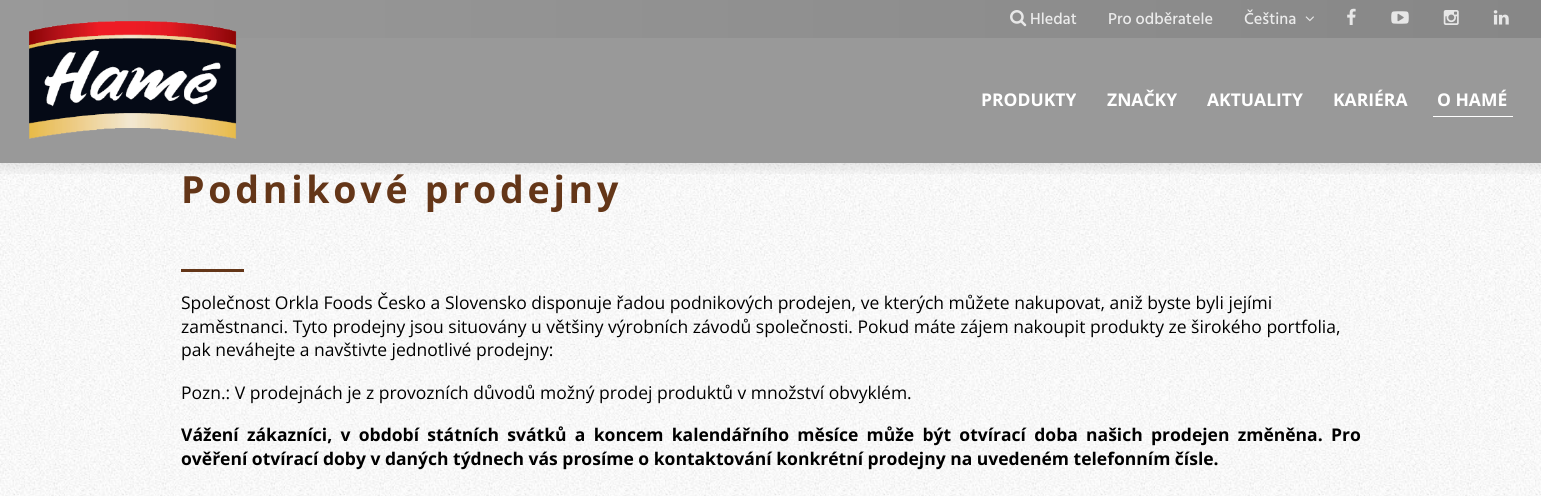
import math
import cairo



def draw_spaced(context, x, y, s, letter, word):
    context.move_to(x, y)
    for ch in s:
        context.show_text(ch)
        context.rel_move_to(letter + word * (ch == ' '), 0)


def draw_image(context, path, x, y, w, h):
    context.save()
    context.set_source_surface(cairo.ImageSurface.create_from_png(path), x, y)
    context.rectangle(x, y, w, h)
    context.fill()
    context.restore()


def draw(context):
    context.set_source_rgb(1, 1, 1)
    context.paint()
    context.set_source_rgb(153 / 255, 153 / 255, 153 / 255)
    context.rectangle(0, 38, 1541, 125)
    context.fill()
    gradient = cairo.LinearGradient(0, 19, 1541, 19)
    gradient.add_color_stop_rgba(0, 153 / 255, 153 / 255, 153 / 255, 1)
    gradient.add_color_stop_rgba(1, 135 / 255, 135 / 255, 135 / 255, 1)
    context.set_source(gradient)
    context.rectangle(0, 0, 1541, 38)
    context.fill()
    draw_image(context, "images/1.png", 1010, 10, 17, 17)
    draw_image(context, "images/2.png", 1305, 16, 9, 6)
    draw_image(context, "images/3.png", 1347, 8, 9, 17)
    draw_image(context, "images/4.png", 1391, 11, 18, 13)
    draw_image(context, "images/5.png", 1443, 10, 16, 15)
    draw_image(context, "images/6.png", 1493, 10, 16, 15)
    draw_image(context, "images/7.png", 29, 21, 208, 118)
    context.set_source_rgb(1, 1, 1)
    context.rectangle(1433, 116, 80, 1)
    context.fill()
    draw_image(context, "images/8.png", 0, 163, 1541, 333)
    gradient = cairo.LinearGradient(771, 162, 771, 178)
    gradient.add_color_stop_rgba(0, 0, 0, 0, 0.08)
    gradient.add_color_stop_rgba(1, 0, 0, 0, 0)
    context.set_source(gradient)
    context.rectangle(0, 163, 1541, 11)
    context.fill()
    context.set_source_rgb(100 / 255, 54 / 255, 24 / 255)
    context.rectangle(181, 269, 63, 3)
    context.fill()
    context.select_font_face("Hind Medium")
    context.set_font_size(16.25)
    context.set_source_rgb(235 / 255, 235 / 255, 235 / 255)
    context.move_to(1030, 24)
    context.show_text("Hledat")
    context.move_to(1108, 24)
    context.show_text("Pro odběratele")
    context.move_to(1244, 24)
    context.show_text("Čeština")
    context.select_font_face("Open Sans", cairo.FontSlant.NORMAL, cairo.FontWeight.BOLD)
    context.set_font_size(17.5)
    context.set_source_rgb(1, 1, 1)
    context.move_to(981, 106)
    context.show_text("PRODUKTY")
    context.move_to(1107, 106)
    context.show_text("ZNAČKY")
    context.move_to(1207, 106)
    context.show_text("AKTUALITY")
    context.move_to(1333, 106)
    context.show_text("KARIÉRA")
    context.move_to(1437, 106)
    context.show_text("O HAMÉ")
    context.set_font_size(37.5)
    context.set_source_rgb(100 / 255, 54 / 255, 24 / 255)
    draw_spaced(context, 181, 203, "Podnikové prodejny", 3.75, 0)
    context.select_font_face("Open Sans")
    context.set_font_size(17.5)
    context.set_source_rgb(0, 0, 0)
    context.move_to(181, 309)
    context.show_text("Společnost Orkla Foods Česko a Slovensko disponuje řadou podnikových prodejen, ve kterých můžete nakupovat, aniž byste byli jejími")
    context.move_to(181, 333)
    context.show_text("zaměstnanci. Tyto prodejny jsou situovány u většiny výrobních závodů společnosti. Pokud máte zájem nakoupit produkty ze širokého portfolia,")
    context.move_to(181, 356)
    context.show_text("pak neváhejte a navštivte jednotlivé prodejny:")
    context.move_to(181, 399)
    context.show_text("Pozn.: V prodejnách je z provozních důvodů možný prodej produktů v množství obvyklém.")
    context.select_font_face("Open Sans", cairo.FontSlant.NORMAL, cairo.FontWeight.BOLD)
    draw_spaced(context, 181, 441, "Vážení zákazníci, v období státních svátků a koncem kalendářního měsíce může být otvírací doba našich prodejen změněna. Pro", 0, 3.75)
    context.move_to(181, 465)
    context.show_text("ověření otvírací doby v daných týdnech vás prosíme o kontaktování konkrétní prodejny na uvedeném telefonním čísle.")


surface = cairo.ImageSurface(cairo.Format.RGB24, 1541, 496)
context = cairo.Context(surface)
options = cairo.FontOptions()
options.set_hint_metrics(cairo.HintMetrics.OFF)
options.set_hint_style(cairo.HintStyle.NONE)
context.set_font_options(options)
context.set_miter_limit(4)
draw(context)
surface.write_to_png("out.png")
